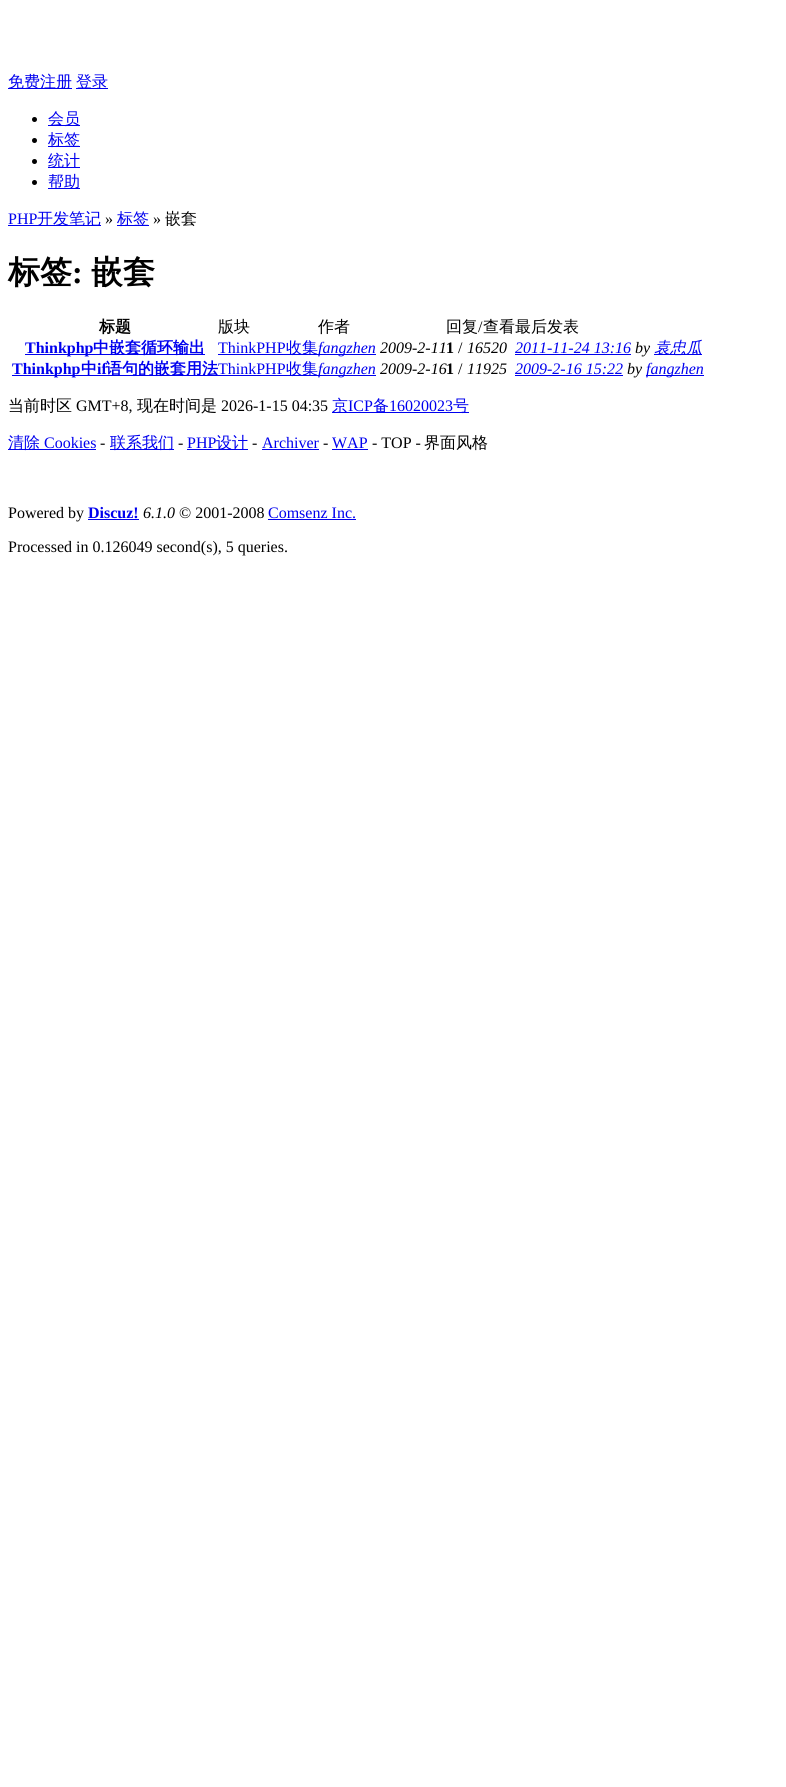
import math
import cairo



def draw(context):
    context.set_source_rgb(1, 1, 1)
    context.paint()
    context.set_source_rgb(0, 0, 238 / 255)
    context.rectangle(8, 88, 64, 1)
    context.fill()
    context.rectangle(76, 88, 32, 1)
    context.fill()
    context.set_source_rgb(0, 0, 0)
    context.arc(34.5, 119.5, 2.5, 0, 2 * math.pi)
    context.fill()
    context.set_source_rgb(0, 0, 238 / 255)
    context.rectangle(48, 125, 32, 1)
    context.fill()
    context.set_source_rgb(0, 0, 0)
    context.arc(34.5, 140.5, 2.5, 0, 2 * math.pi)
    context.fill()
    context.set_source_rgb(0, 0, 238 / 255)
    context.rectangle(48, 146, 32, 1)
    context.fill()
    context.set_source_rgb(0, 0, 0)
    context.arc(34.5, 161.5, 2.5, 0, 2 * math.pi)
    context.fill()
    context.set_source_rgb(0, 0, 238 / 255)
    context.rectangle(48, 167, 32, 1)
    context.fill()
    context.set_source_rgb(0, 0, 0)
    context.arc(34.5, 182.5, 2.5, 0, 2 * math.pi)
    context.fill()
    context.set_source_rgb(0, 0, 238 / 255)
    context.rectangle(48, 188, 32, 1)
    context.fill()
    context.rectangle(8, 225, 93, 1)
    context.fill()
    context.rectangle(117, 225, 32, 1)
    context.fill()
    context.rectangle(25, 354, 180, 1)
    context.fill()
    context.rectangle(218, 354, 158, 1)
    context.fill()
    context.rectangle(515, 354, 116, 1)
    context.fill()
    context.rectangle(654, 354, 48, 1)
    context.fill()
    context.rectangle(12, 375, 364, 1)
    context.fill()
    context.rectangle(515, 375, 108, 1)
    context.fill()
    context.rectangle(646, 375, 58, 1)
    context.fill()
    context.rectangle(332, 412, 137, 1)
    context.fill()
    context.rectangle(8, 449, 88, 1)
    context.fill()
    context.rectangle(110, 449, 64, 1)
    context.fill()
    context.rectangle(187, 449, 61, 1)
    context.fill()
    context.rectangle(262, 449, 57, 1)
    context.fill()
    context.rectangle(332, 449, 36, 1)
    context.fill()
    context.rectangle(88, 519, 51, 1)
    context.fill()
    context.rectangle(268, 519, 88, 1)
    context.fill()
    context.select_font_face("WenQuanYi Zen Hei Medium")
    context.set_font_size(16)
    context.move_to(8, 87)
    context.show_text("免费注册")
    context.move_to(76, 87)
    context.show_text("登录")
    context.move_to(48, 124)
    context.show_text("会员")
    context.move_to(48, 145)
    context.show_text("标签")
    context.move_to(48, 166)
    context.show_text("统计")
    context.move_to(48, 187)
    context.show_text("帮助")
    context.select_font_face("Liberation Serif")
    context.move_to(8, 224)
    context.show_text("PHP")
    context.select_font_face("WenQuanYi Zen Hei Medium")
    context.move_to(37, 224)
    context.show_text("开发笔记")
    context.select_font_face("Liberation Serif")
    context.set_source_rgb(0, 0, 0)
    context.move_to(105, 224)
    context.show_text("»")
    context.select_font_face("WenQuanYi Zen Hei Medium")
    context.set_source_rgb(0, 0, 238 / 255)
    context.move_to(117, 224)
    context.show_text("标签")
    context.select_font_face("Liberation Serif")
    context.set_source_rgb(0, 0, 0)
    context.move_to(153, 224)
    context.show_text("»")
    context.select_font_face("WenQuanYi Zen Hei Medium")
    context.move_to(165, 224)
    context.show_text("嵌套")
    context.select_font_face("WenQuanYi Zen Hei", cairo.FontSlant.NORMAL, cairo.FontWeight.BOLD)
    context.set_font_size(32)
    context.move_to(8, 283)
    context.show_text("标签")
    context.select_font_face("Liberation Serif", cairo.FontSlant.NORMAL, cairo.FontWeight.BOLD)
    context.move_to(72, 283)
    context.show_text(":")
    context.select_font_face("WenQuanYi Zen Hei", cairo.FontSlant.NORMAL, cairo.FontWeight.BOLD)
    context.move_to(91, 283)
    context.show_text("嵌套")
    context.set_font_size(16)
    context.move_to(99, 332)
    context.show_text("标题")
    context.select_font_face("WenQuanYi Zen Hei Medium")
    context.move_to(218, 332)
    context.show_text("版块")
    context.move_to(318, 332)
    context.show_text("作者")
    context.move_to(446, 332)
    context.show_text("回复")
    context.select_font_face("Liberation Serif")
    context.move_to(478, 332)
    context.show_text("/")
    context.select_font_face("WenQuanYi Zen Hei Medium")
    context.move_to(483, 332)
    context.show_text("查看最后发表")
    context.select_font_face("Liberation Serif", cairo.FontSlant.NORMAL, cairo.FontWeight.BOLD)
    context.set_source_rgb(0, 0, 238 / 255)
    context.move_to(25, 353)
    context.show_text("Thinkphp")
    context.select_font_face("WenQuanYi Zen Hei", cairo.FontSlant.NORMAL, cairo.FontWeight.BOLD)
    context.move_to(93, 353)
    context.show_text("中嵌套循环输出")
    context.select_font_face("Liberation Serif")
    context.move_to(218, 353)
    context.show_text("ThinkPHP")
    context.select_font_face("WenQuanYi Zen Hei Medium")
    context.move_to(286, 353)
    context.show_text("收集")
    context.select_font_face("Liberation Serif", cairo.FontSlant.ITALIC)
    context.move_to(318, 353)
    context.show_text("fangzhen")
    context.set_source_rgb(0, 0, 0)
    context.move_to(380, 353)
    context.show_text("2009-2-11")
    context.select_font_face("Liberation Serif", cairo.FontSlant.NORMAL, cairo.FontWeight.BOLD)
    context.move_to(446, 353)
    context.show_text("1")
    context.select_font_face("Liberation Serif")
    context.move_to(458, 353)
    context.show_text("/")
    context.select_font_face("Liberation Serif", cairo.FontSlant.ITALIC)
    context.move_to(467, 353)
    context.show_text("16520")
    context.set_source_rgb(0, 0, 238 / 255)
    context.move_to(515, 353)
    context.show_text("2011-11-24 13:16")
    context.set_source_rgb(0, 0, 0)
    context.move_to(635, 353)
    context.show_text("by")
    context.select_font_face("WenQuanYi Zen Hei Medium", cairo.FontSlant.ITALIC)
    context.set_source_rgb(0, 0, 238 / 255)
    context.move_to(654, 353)
    context.show_text("袁忠瓜")
    context.select_font_face("Liberation Serif", cairo.FontSlant.NORMAL, cairo.FontWeight.BOLD)
    context.move_to(12, 374)
    context.show_text("Thinkphp")
    context.select_font_face("WenQuanYi Zen Hei", cairo.FontSlant.NORMAL, cairo.FontWeight.BOLD)
    context.move_to(81, 374)
    context.show_text("中")
    context.select_font_face("Liberation Serif", cairo.FontSlant.NORMAL, cairo.FontWeight.BOLD)
    context.move_to(97, 374)
    context.show_text("if")
    context.select_font_face("WenQuanYi Zen Hei", cairo.FontSlant.NORMAL, cairo.FontWeight.BOLD)
    context.move_to(106, 374)
    context.show_text("语句的嵌套用法")
    context.select_font_face("Liberation Serif")
    context.move_to(218, 374)
    context.show_text("ThinkPHP")
    context.select_font_face("WenQuanYi Zen Hei Medium")
    context.move_to(286, 374)
    context.show_text("收集")
    context.select_font_face("Liberation Serif", cairo.FontSlant.ITALIC)
    context.move_to(318, 374)
    context.show_text("fangzhen")
    context.set_source_rgb(0, 0, 0)
    context.move_to(380, 374)
    context.show_text("2009-2-16")
    context.select_font_face("Liberation Serif", cairo.FontSlant.NORMAL, cairo.FontWeight.BOLD)
    context.move_to(446, 374)
    context.show_text("1")
    context.select_font_face("Liberation Serif")
    context.move_to(458, 374)
    context.show_text("/")
    context.select_font_face("Liberation Serif", cairo.FontSlant.ITALIC)
    context.move_to(467, 374)
    context.show_text("11925")
    context.set_source_rgb(0, 0, 238 / 255)
    context.move_to(515, 374)
    context.show_text("2009-2-16 15:22")
    context.set_source_rgb(0, 0, 0)
    context.move_to(627, 374)
    context.show_text("by")
    context.set_source_rgb(0, 0, 238 / 255)
    context.move_to(646, 374)
    context.show_text("fangzhen")
    context.select_font_face("WenQuanYi Zen Hei Medium")
    context.set_source_rgb(0, 0, 0)
    context.move_to(8, 411)
    context.show_text("当前时区")
    context.select_font_face("Liberation Serif")
    context.move_to(76, 411)
    context.show_text("GMT+8,")
    context.select_font_face("WenQuanYi Zen Hei Medium")
    context.move_to(137, 411)
    context.show_text("现在时间是")
    context.select_font_face("Liberation Serif")
    context.move_to(221, 411)
    context.show_text("2026-1-15 04:35")
    context.select_font_face("WenQuanYi Zen Hei Medium")
    context.set_source_rgb(0, 0, 238 / 255)
    context.move_to(332, 411)
    context.show_text("京")
    context.select_font_face("Liberation Serif")
    context.move_to(348, 411)
    context.show_text("ICP")
    context.select_font_face("WenQuanYi Zen Hei Medium")
    context.move_to(373, 411)
    context.show_text("备")
    context.select_font_face("Liberation Serif")
    context.move_to(389, 411)
    context.show_text("16020023")
    context.select_font_face("WenQuanYi Zen Hei Medium")
    context.move_to(453, 411)
    context.show_text("号")
    context.move_to(8, 448)
    context.show_text("清除")
    context.select_font_face("Liberation Serif")
    context.move_to(44, 448)
    context.show_text("Cookies")
    context.set_source_rgb(0, 0, 0)
    context.move_to(100, 448)
    context.show_text("-")
    context.select_font_face("WenQuanYi Zen Hei Medium")
    context.set_source_rgb(0, 0, 238 / 255)
    context.move_to(110, 448)
    context.show_text("联系我们")
    context.select_font_face("Liberation Serif")
    context.set_source_rgb(0, 0, 0)
    context.move_to(178, 448)
    context.show_text("-")
    context.set_source_rgb(0, 0, 238 / 255)
    context.move_to(187, 448)
    context.show_text("PHP")
    context.select_font_face("WenQuanYi Zen Hei Medium")
    context.move_to(216, 448)
    context.show_text("设计")
    context.select_font_face("Liberation Serif")
    context.set_source_rgb(0, 0, 0)
    context.move_to(252, 448)
    context.show_text("-")
    context.set_source_rgb(0, 0, 238 / 255)
    context.move_to(262, 448)
    context.show_text("Archiver")
    context.set_source_rgb(0, 0, 0)
    context.move_to(323, 448)
    context.show_text("-")
    context.set_source_rgb(0, 0, 238 / 255)
    context.move_to(332, 448)
    context.show_text("WAP")
    context.set_source_rgb(0, 0, 0)
    context.move_to(372, 448)
    context.show_text("- TOP -")
    context.select_font_face("WenQuanYi Zen Hei Medium")
    context.move_to(424, 448)
    context.show_text("界面风格")
    context.select_font_face("Liberation Serif")
    context.move_to(8, 518)
    context.show_text("Powered by")
    context.select_font_face("Liberation Serif", cairo.FontSlant.NORMAL, cairo.FontWeight.BOLD)
    context.set_source_rgb(0, 0, 238 / 255)
    context.move_to(88, 518)
    context.show_text("Discuz!")
    context.select_font_face("Liberation Serif", cairo.FontSlant.ITALIC)
    context.set_source_rgb(0, 0, 0)
    context.move_to(143, 518)
    context.show_text("6.1.0")
    context.select_font_face("Liberation Serif")
    context.move_to(179, 518)
    context.show_text("© 2001-2008")
    context.set_source_rgb(0, 0, 238 / 255)
    context.move_to(268, 518)
    context.show_text("Comsenz Inc.")
    context.set_source_rgb(0, 0, 0)
    context.move_to(8, 552)
    context.show_text("Processed in 0.126049 second(s), 5 queries.")


surface = cairo.ImageSurface(cairo.Format.RGB24, 786, 1787)
context = cairo.Context(surface)
options = cairo.FontOptions()
options.set_hint_metrics(cairo.HintMetrics.OFF)
options.set_hint_style(cairo.HintStyle.NONE)
context.set_font_options(options)
context.set_miter_limit(4)
draw(context)
surface.write_to_png("out.png")
